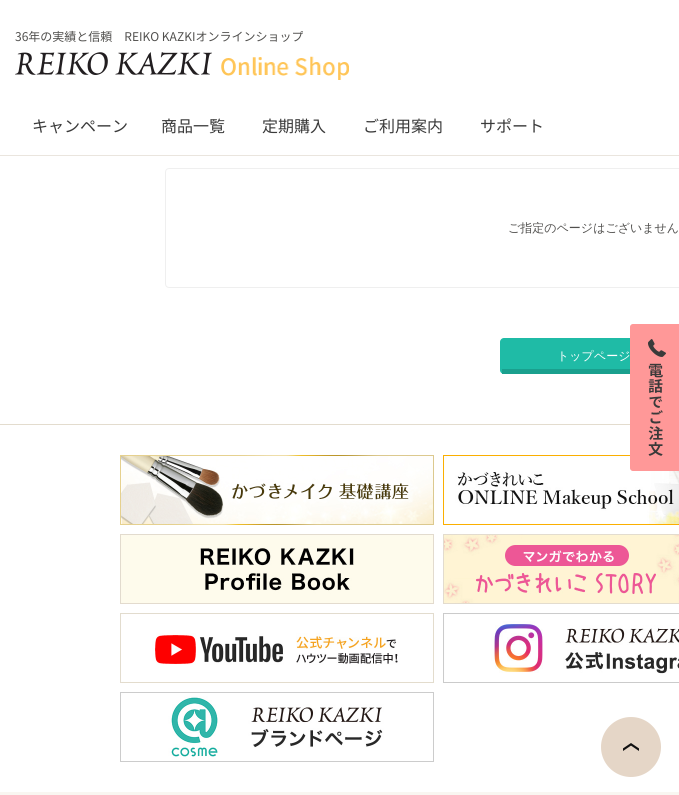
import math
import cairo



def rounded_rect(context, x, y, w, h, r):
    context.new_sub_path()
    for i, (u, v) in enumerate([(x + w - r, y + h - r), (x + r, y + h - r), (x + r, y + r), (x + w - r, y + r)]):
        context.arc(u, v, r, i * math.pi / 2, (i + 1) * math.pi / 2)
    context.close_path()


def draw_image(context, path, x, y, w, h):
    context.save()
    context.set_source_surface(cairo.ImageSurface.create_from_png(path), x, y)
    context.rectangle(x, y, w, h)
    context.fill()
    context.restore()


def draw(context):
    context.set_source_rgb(1, 1, 1)
    context.paint()
    context.set_source_rgb(234 / 255, 229 / 255, 222 / 255)
    context.rectangle(0, 155, 679, 1)
    context.fill()
    draw_image(context, "images/1.png", 15, 52, 197, 23)
    draw_image(context, "images/2.png", 221, 56, 128, 24)
    rounded_rect(context, 165.5, 168.5, 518, 119, 3.5)
    context.set_source_rgb(239 / 255, 239 / 255, 239 / 255)
    context.set_line_width(1)
    context.stroke()
    context.set_source_rgb(31 / 255, 187 / 255, 166 / 255)
    rounded_rect(context, 500, 338, 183, 36, 4)
    context.fill()
    context.set_source_rgb(26 / 255, 160 / 255, 142 / 255)
    context.rectangle(502, 369, 128, 5)
    context.fill()
    draw_image(context, "images/6.png", 443, 455, 236, 70)
    draw_image(context, "images/3.png", 630, 324, 49, 147)
    draw_image(context, "images/4.png", 601, 717, 60, 60)
    context.set_source_rgb(227 / 255, 220 / 255, 206 / 255)
    context.rectangle(0, 424, 630, 1)
    context.fill()
    draw_image(context, "images/5.png", 120, 455, 314, 70)
    draw_image(context, "images/7.png", 120, 534, 314, 70)
    draw_image(context, "images/8.png", 443, 534, 236, 70)
    draw_image(context, "images/9.png", 120, 613, 314, 70)
    draw_image(context, "images/10.png", 443, 613, 236, 70)
    draw_image(context, "images/11.png", 120, 692, 314, 70)
    gradient = cairo.LinearGradient(600, 792, 600, 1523)
    gradient.add_color_stop_rgba(0, 249 / 255, 246 / 255, 241 / 255, 1)
    gradient.add_color_stop_rgba(1, 240 / 255, 240 / 255, 240 / 255, 1)
    context.set_source(gradient)
    context.rectangle(0, 792, 679, 3)
    context.fill()
    context.select_font_face("Noto Sans JP")
    context.set_font_size(12)
    context.set_source_rgb(81 / 255, 80 / 255, 78 / 255)
    context.move_to(15, 41)
    context.show_text("36年の実績と信頼　REIKO KAZKIオンラインショップ")
    context.set_font_size(16)
    context.set_source_rgb(58 / 255, 58 / 255, 58 / 255)
    context.move_to(32, 132)
    context.show_text("キャンペーン")
    context.move_to(161, 132)
    context.show_text("商品一覧")
    context.move_to(262, 132)
    context.show_text("定期購入")
    context.move_to(363, 132)
    context.show_text("ご利用案内")
    context.move_to(480, 132)
    context.show_text("サポート")
    context.select_font_face("WenQuanYi Zen Hei Medium")
    context.set_font_size(12)
    context.set_source_rgb(81 / 255, 80 / 255, 78 / 255)
    context.move_to(508, 232)
    context.show_text("ご指定のページはございません")
    context.set_source_rgb(1, 1, 1)
    context.move_to(557, 360)
    context.show_text("トップページ")


surface = cairo.ImageSurface(cairo.Format.RGB24, 679, 795)
context = cairo.Context(surface)
options = cairo.FontOptions()
options.set_hint_metrics(cairo.HintMetrics.OFF)
options.set_hint_style(cairo.HintStyle.NONE)
context.set_font_options(options)
context.set_miter_limit(4)
draw(context)
surface.write_to_png("out.png")
